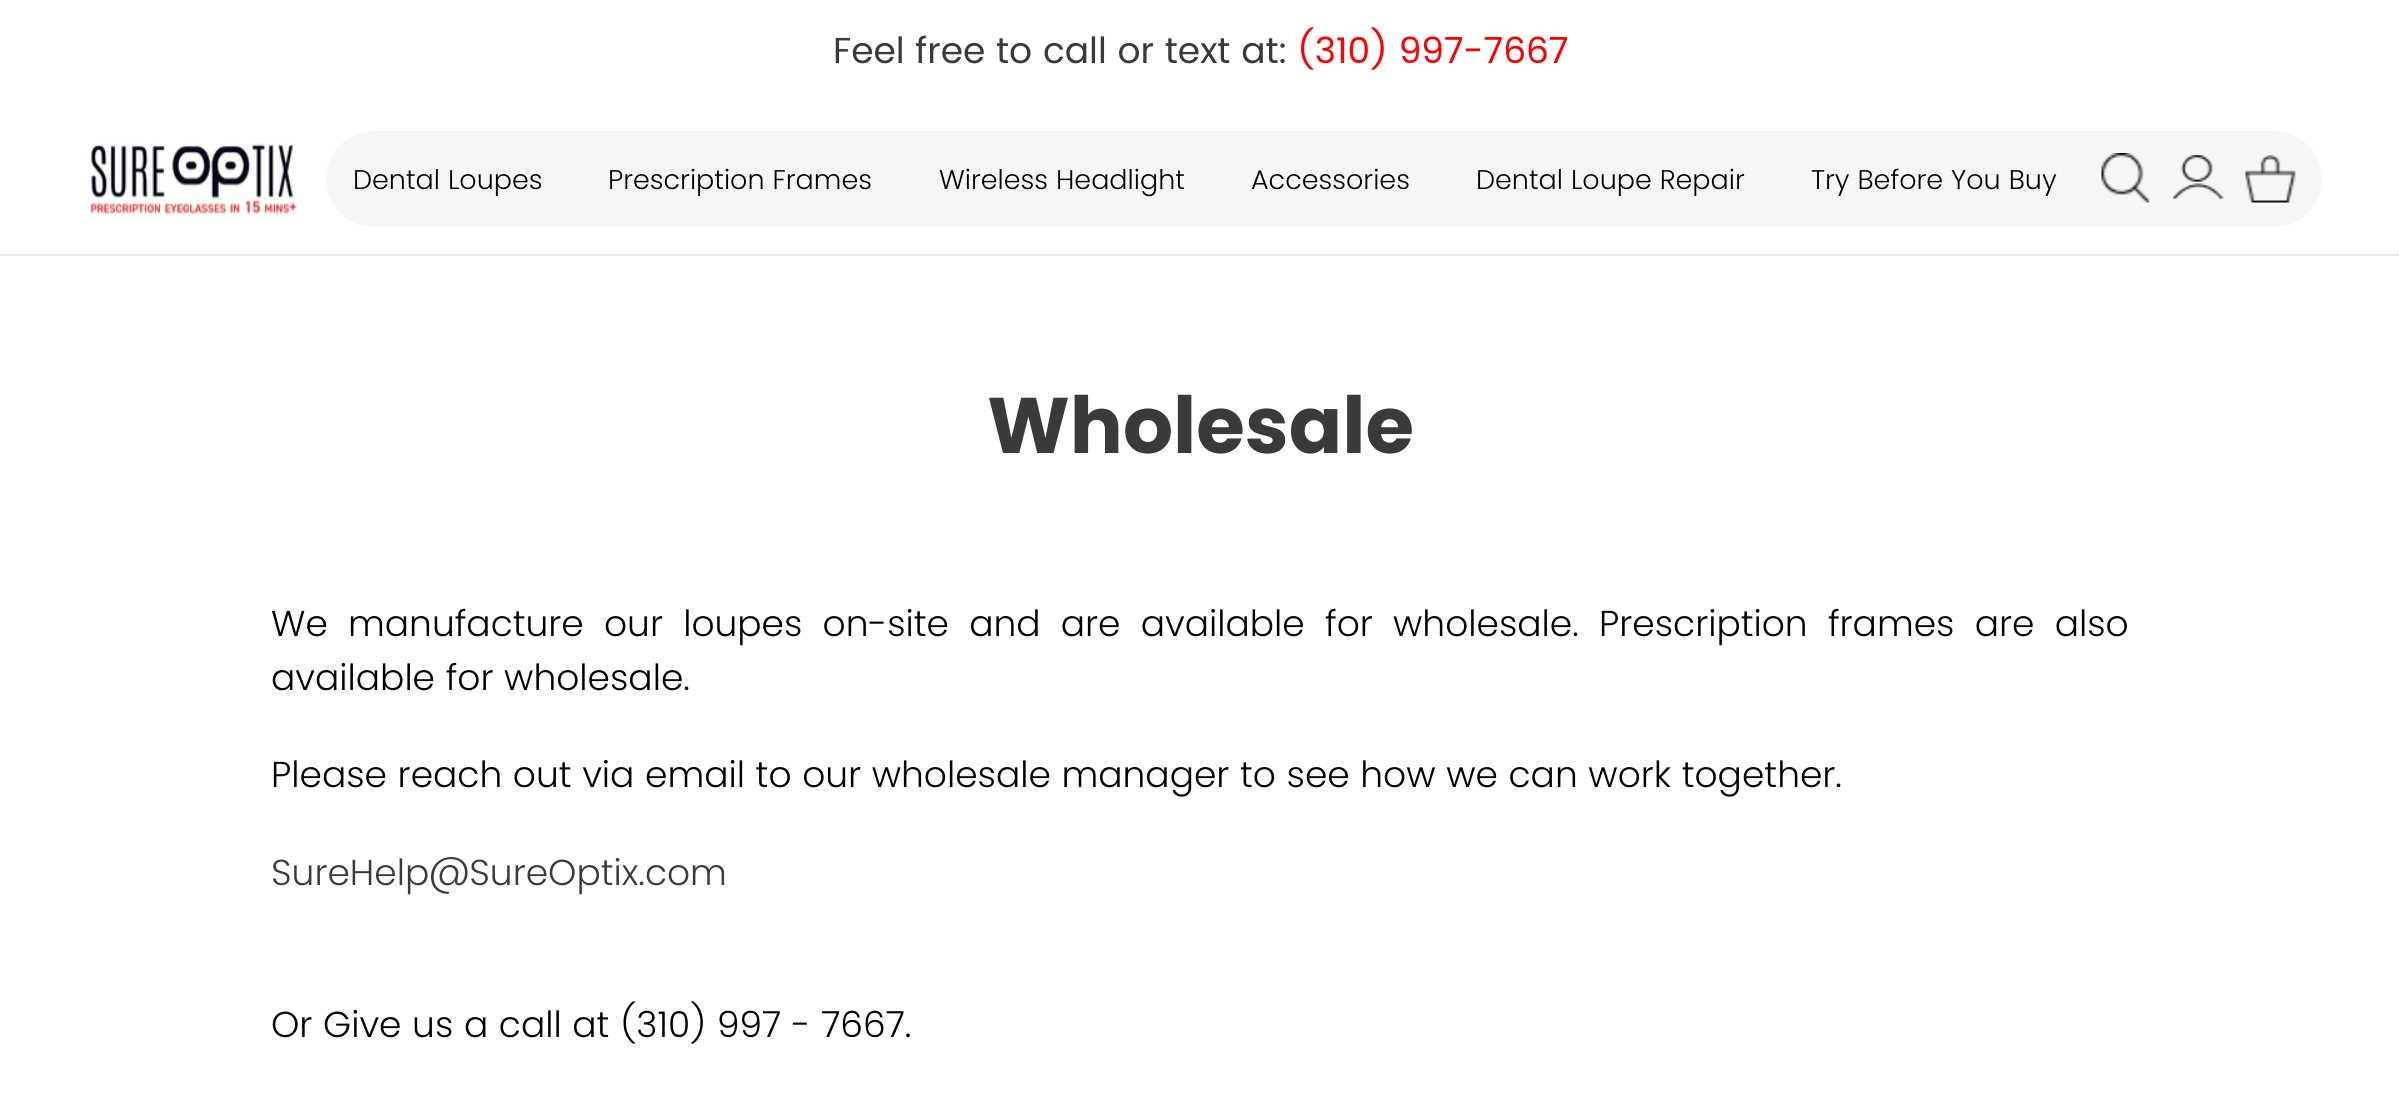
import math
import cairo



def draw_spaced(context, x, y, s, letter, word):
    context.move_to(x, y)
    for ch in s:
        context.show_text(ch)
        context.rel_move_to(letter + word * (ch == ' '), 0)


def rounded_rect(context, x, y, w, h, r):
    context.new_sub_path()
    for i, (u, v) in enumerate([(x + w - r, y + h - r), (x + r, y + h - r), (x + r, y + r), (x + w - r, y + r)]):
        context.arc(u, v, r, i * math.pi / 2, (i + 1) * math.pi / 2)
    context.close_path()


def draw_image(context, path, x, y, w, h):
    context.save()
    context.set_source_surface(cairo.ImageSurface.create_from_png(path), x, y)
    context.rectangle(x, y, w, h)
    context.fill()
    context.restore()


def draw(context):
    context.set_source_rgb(1, 1, 1)
    context.paint()
    context.set_source_rgb(235 / 255, 235 / 255, 235 / 255)
    context.rectangle(0, 254, 2399, 2)
    context.fill()
    draw_image(context, "images/1.png", 89, 142, 210, 77)
    context.set_source_rgb(245 / 255, 246 / 255, 247 / 255)
    rounded_rect(context, 326, 131, 1996, 96, 48)
    context.fill()
    draw_image(context, "images/2.png", 2101, 153, 49, 50)
    draw_image(context, "images/3.png", 2173, 155, 51, 45)
    draw_image(context, "images/4.png", 2245, 155, 51, 48)
    context.select_font_face("Poppins")
    context.set_font_size(36)
    context.set_source_rgb(58 / 255, 58 / 255, 58 / 255)
    context.move_to(833, 63)
    context.show_text("Feel free to call or text at:")
    context.set_source_rgb(1, 0, 0)
    context.move_to(1297, 63)
    context.show_text("(310) 997-7667")
    context.select_font_face("Poppins Light")
    context.set_font_size(27)
    context.set_source_rgb(0, 0, 0)
    context.move_to(353, 189)
    context.show_text("Dental Loupes")
    context.move_to(608, 189)
    context.show_text("Prescription Frames")
    context.move_to(939, 189)
    context.show_text("Wireless Headlight")
    context.move_to(1251, 189)
    context.show_text("Accessories")
    context.move_to(1476, 189)
    context.show_text("Dental Loupe Repair")
    context.move_to(1811, 189)
    context.show_text("Try Before You Buy")
    context.select_font_face("Poppins", cairo.FontSlant.NORMAL, cairo.FontWeight.BOLD)
    context.set_font_size(78.75)
    context.set_source_rgb(58 / 255, 58 / 255, 58 / 255)
    context.move_to(987, 453)
    context.show_text("Wholesale")
    context.select_font_face("Poppins Light")
    context.set_font_size(36)
    context.set_source_rgb(0, 0, 0)
    draw_spaced(context, 271, 636, "We manufacture our loupes on-site and are available for wholesale. Prescription frames are also", 0, 9.6)
    context.move_to(271, 690)
    context.show_text("available for wholesale.")
    context.move_to(271, 787)
    context.show_text("Please reach out via email to our wholesale manager to see how we can work together.")
    context.set_source_rgb(58 / 255, 58 / 255, 58 / 255)
    context.move_to(271, 885)
    context.show_text("SureHelp@SureOptix.com")
    context.set_source_rgb(0, 0, 0)
    context.move_to(271, 1037)
    context.show_text("Or Give us a call at (310) 997 - 7667.")


surface = cairo.ImageSurface(cairo.Format.RGB24, 2399, 1115)
context = cairo.Context(surface)
options = cairo.FontOptions()
options.set_hint_metrics(cairo.HintMetrics.OFF)
options.set_hint_style(cairo.HintStyle.NONE)
context.set_font_options(options)
context.set_miter_limit(4)
draw(context)
surface.write_to_png("out.png")
